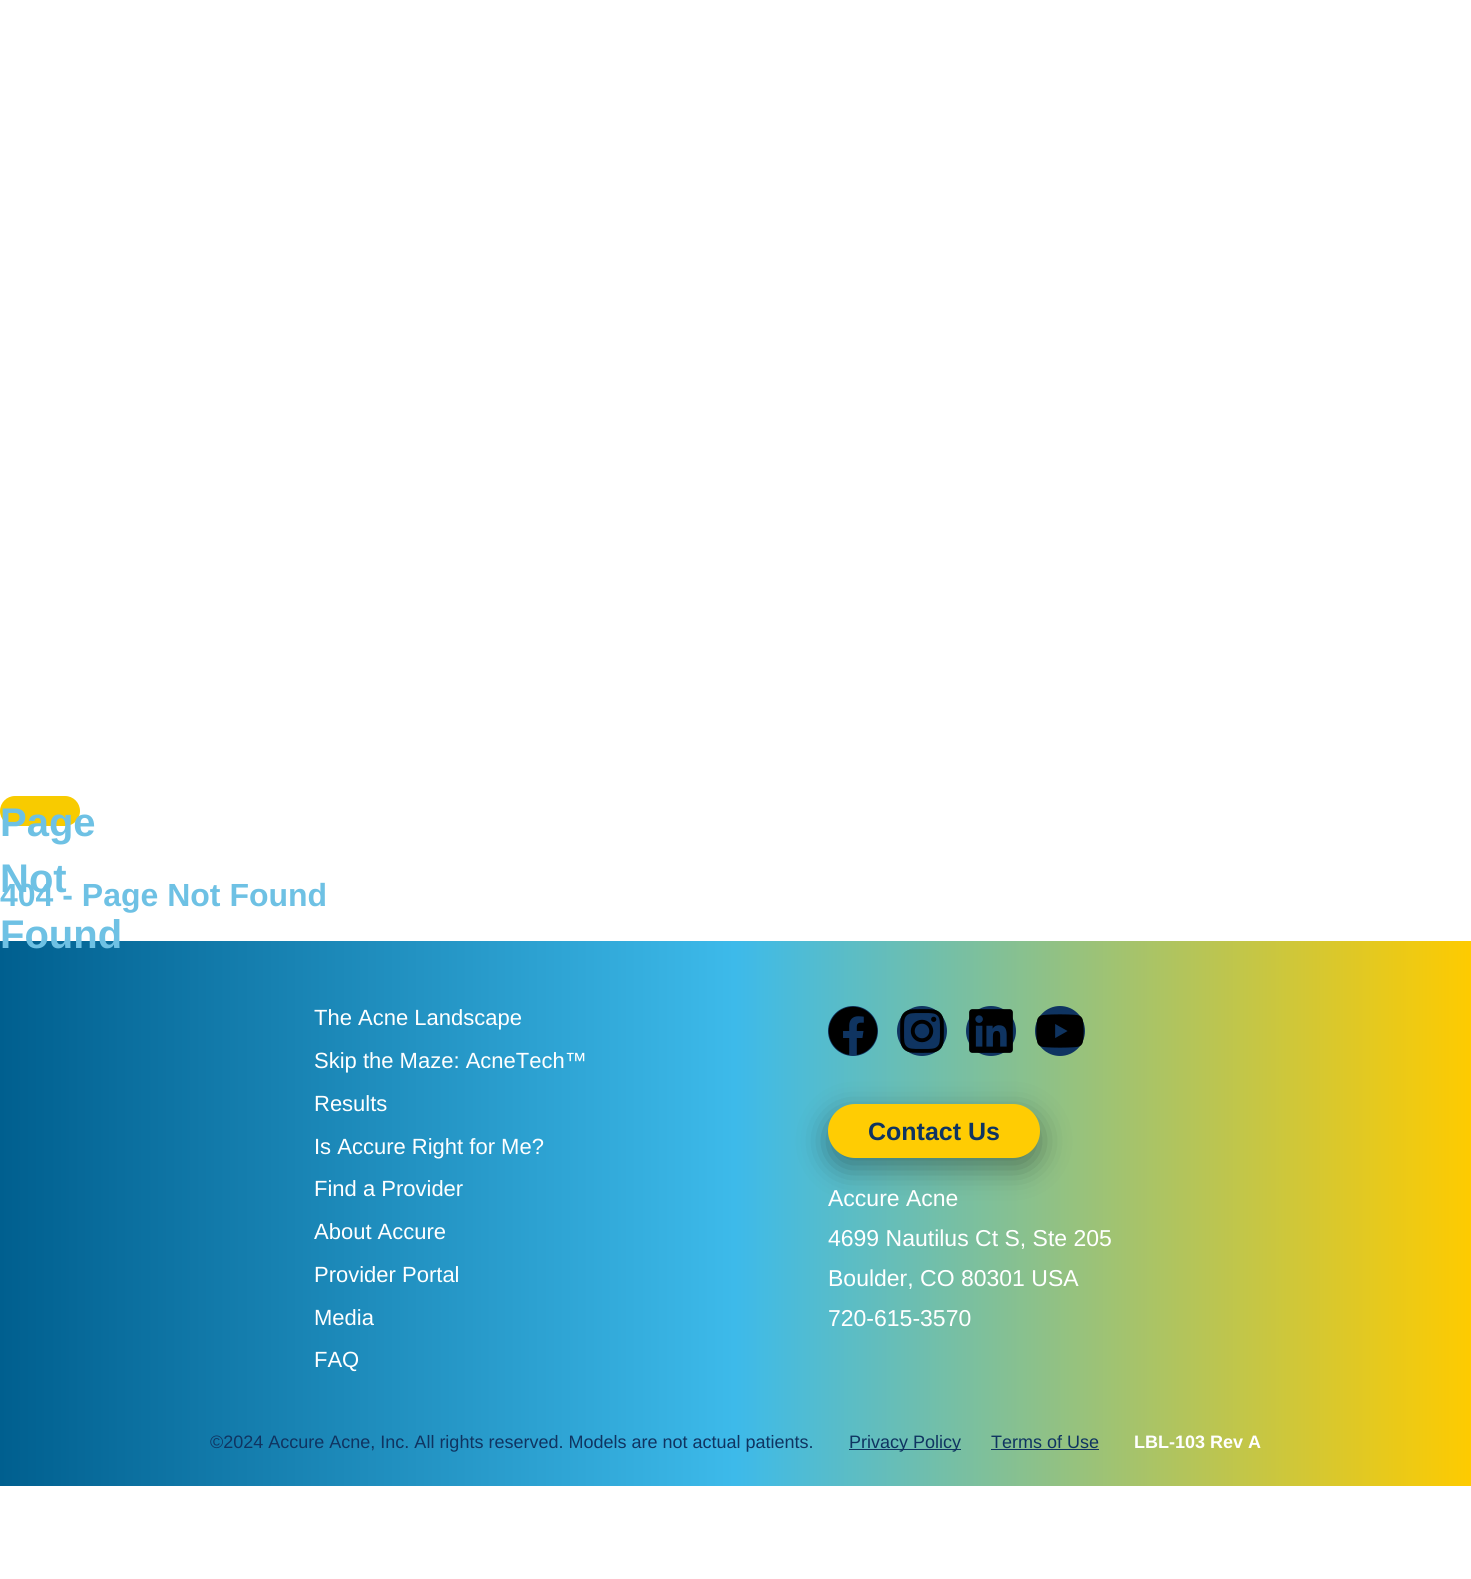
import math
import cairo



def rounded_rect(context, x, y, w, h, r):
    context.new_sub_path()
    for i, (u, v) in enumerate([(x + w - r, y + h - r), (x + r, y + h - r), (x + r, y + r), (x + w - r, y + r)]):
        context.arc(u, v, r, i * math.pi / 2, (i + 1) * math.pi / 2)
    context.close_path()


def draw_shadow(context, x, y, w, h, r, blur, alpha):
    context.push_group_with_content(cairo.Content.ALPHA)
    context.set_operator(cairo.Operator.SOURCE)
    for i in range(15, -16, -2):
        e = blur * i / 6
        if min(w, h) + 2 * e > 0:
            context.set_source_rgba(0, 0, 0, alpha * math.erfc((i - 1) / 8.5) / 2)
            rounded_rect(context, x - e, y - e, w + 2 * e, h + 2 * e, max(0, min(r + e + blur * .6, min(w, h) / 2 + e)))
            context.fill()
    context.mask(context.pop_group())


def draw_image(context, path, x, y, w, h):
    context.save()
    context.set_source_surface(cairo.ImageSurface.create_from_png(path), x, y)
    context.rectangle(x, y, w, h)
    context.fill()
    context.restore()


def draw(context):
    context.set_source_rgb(1, 1, 1)
    context.paint()
    context.set_source_rgb(248 / 255, 203 / 255, 0)
    rounded_rect(context, 0, 796, 80, 30, 15)
    context.fill()
    gradient = cairo.LinearGradient(0, 1214, 1471, 1214)
    gradient.add_color_stop_rgba(0, 0, 95 / 255, 143 / 255, 1)
    gradient.add_color_stop_rgba(0.5, 61 / 255, 186 / 255, 234 / 255, 1)
    gradient.add_color_stop_rgba(1, 254 / 255, 203 / 255, 0, 1)
    context.set_source(gradient)
    context.rectangle(0, 941, 1471, 545)
    context.fill()
    context.set_source_rgb(15 / 255, 52 / 255, 97 / 255)
    context.arc(853, 1031, 25, 0, 2 * math.pi)
    context.fill()
    draw_image(context, "images/1.png", 828, 1006, 50, 49)
    context.arc(922, 1031, 25, 0, 2 * math.pi)
    context.fill()
    draw_image(context, "images/2.png", 900, 1009, 44, 44)
    context.arc(991, 1031, 25, 0, 2 * math.pi)
    context.fill()
    draw_image(context, "images/3.png", 969, 1009, 44, 44)
    context.arc(1060, 1031, 25, 0, 2 * math.pi)
    context.fill()
    draw_image(context, "images/4.png", 1036, 1014, 48, 34)
    context.set_source_rgb(0, 0, 0)
    draw_shadow(context, 828, 1114, 212, 54, 27, 15, 0.37)
    context.set_source_rgb(1, 204 / 255, 3 / 255)
    rounded_rect(context, 828, 1104, 212, 54, 27)
    context.fill()
    context.set_source_rgb(15 / 255, 52 / 255, 97 / 255)
    context.rectangle(849, 1449, 112, 1)
    context.fill()
    context.rectangle(991, 1449, 108, 1)
    context.fill()
    context.select_font_face("Liberation Sans", cairo.FontSlant.NORMAL, cairo.FontWeight.BOLD)
    context.set_font_size(40)
    context.set_source_rgb(110 / 255, 193 / 255, 228 / 255)
    context.move_to(0, 836)
    context.show_text("Page")
    context.move_to(0, 892)
    context.show_text("Not")
    context.move_to(0, 948)
    context.show_text("Found")
    context.set_font_size(32)
    context.move_to(0, 906)
    context.show_text("404 - Page Not Found")
    context.select_font_face("Liberation Sans")
    context.set_font_size(22)
    context.set_source_rgb(1, 1, 1)
    context.move_to(314, 1025)
    context.show_text("The Acne Landscape")
    context.move_to(314, 1068)
    context.show_text("Skip the Maze: AcneTech™")
    context.move_to(314, 1111)
    context.show_text("Results")
    context.move_to(314, 1154)
    context.show_text("Is Accure Right for Me?")
    context.move_to(314, 1196)
    context.show_text("Find a Provider")
    context.move_to(314, 1239)
    context.show_text("About Accure")
    context.move_to(314, 1282)
    context.show_text("Provider Portal")
    context.move_to(314, 1325)
    context.show_text("Media")
    context.move_to(314, 1367)
    context.show_text("FAQ")
    context.select_font_face("Liberation Sans", cairo.FontSlant.NORMAL, cairo.FontWeight.BOLD)
    context.set_font_size(25)
    context.set_source_rgb(15 / 255, 52 / 255, 97 / 255)
    context.move_to(868, 1140)
    context.show_text("Contact Us")
    context.select_font_face("Liberation Sans")
    context.set_font_size(23)
    context.set_source_rgb(1, 1, 1)
    context.move_to(828, 1206)
    context.show_text("Accure Acne")
    context.move_to(828, 1246)
    context.show_text("4699 Nautilus Ct S, Ste 205")
    context.move_to(828, 1286)
    context.show_text("Boulder, CO 80301 USA")
    context.move_to(828, 1326)
    context.show_text("720-615-3570")
    context.set_font_size(18)
    context.set_source_rgb(15 / 255, 52 / 255, 97 / 255)
    context.move_to(210, 1448)
    context.show_text("©2024 Accure Acne, Inc. All rights reserved. Models are not actual patients.")
    context.move_to(849, 1448)
    context.show_text("Privacy Policy")
    context.move_to(991, 1448)
    context.show_text("Terms of Use")
    context.select_font_face("Liberation Sans", cairo.FontSlant.NORMAL, cairo.FontWeight.BOLD)
    context.set_source_rgb(1, 1, 1)
    context.move_to(1134, 1448)
    context.show_text("LBL-103 Rev A")


surface = cairo.ImageSurface(cairo.Format.RGB24, 1471, 1579)
context = cairo.Context(surface)
options = cairo.FontOptions()
options.set_hint_metrics(cairo.HintMetrics.OFF)
options.set_hint_style(cairo.HintStyle.NONE)
context.set_font_options(options)
context.set_miter_limit(4)
draw(context)
surface.write_to_png("out.png")
